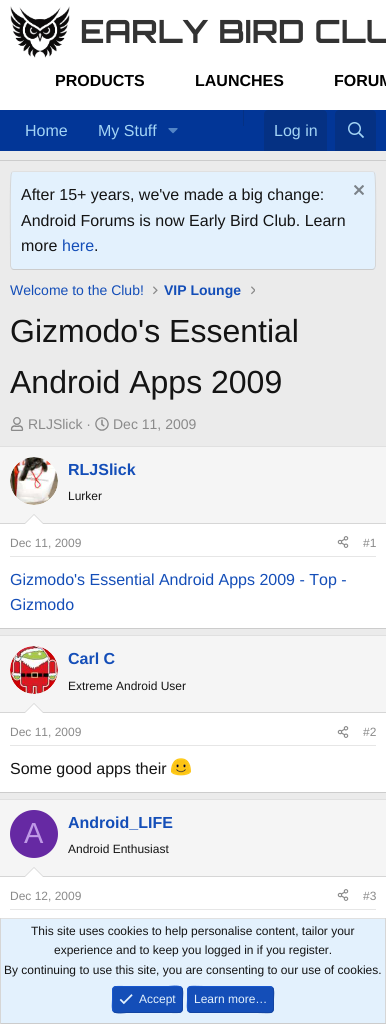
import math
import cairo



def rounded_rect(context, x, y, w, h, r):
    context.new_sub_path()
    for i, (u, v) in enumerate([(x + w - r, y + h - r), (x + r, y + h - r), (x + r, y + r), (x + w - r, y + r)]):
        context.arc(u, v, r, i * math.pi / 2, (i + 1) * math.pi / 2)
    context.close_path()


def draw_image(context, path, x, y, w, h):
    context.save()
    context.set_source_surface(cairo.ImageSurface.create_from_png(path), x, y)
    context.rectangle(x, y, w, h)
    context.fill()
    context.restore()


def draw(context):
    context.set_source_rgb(235 / 255, 235 / 255, 235 / 255)
    context.paint()
    context.set_source_rgb(1, 1, 1)
    context.rectangle(0, 0, 386, 110)
    context.fill()
    draw_image(context, "images/1.png", 10, 6, 60, 52)
    context.set_source_rgb(2 / 255, 54 / 255, 151 / 255)
    context.rectangle(0, 110, 386, 41)
    context.fill()
    draw_image(context, "images/2.png", 168, 128, 10, 6)
    context.set_source_rgb(5 / 255, 49 / 255, 131 / 255)
    context.rectangle(243, 110, 1, 16)
    context.fill()
    context.new_path()
    context.move_to(268, 110)
    context.line_to(323, 110)
    context.curve_to(325, 110, 327, 112, 327, 114)
    context.line_to(327, 151)
    context.line_to(264, 151)
    context.line_to(264, 114)
    context.curve_to(264, 112, 266, 110, 268, 110)
    context.close_path()
    context.fill()
    context.new_path()
    context.move_to(339, 110)
    context.line_to(372, 110)
    context.curve_to(374, 110, 376, 112, 376, 114)
    context.line_to(376, 151)
    context.line_to(335, 151)
    context.line_to(335, 114)
    context.curve_to(335, 112, 337, 110, 339, 110)
    context.close_path()
    context.fill()
    draw_image(context, "images/3.png", 348, 122, 16, 16)
    context.set_source_rgb(204 / 255, 204 / 255, 204 / 255)
    context.rectangle(0, 160, 386, 1)
    context.fill()
    context.set_source_rgb(227 / 255, 241 / 255, 253 / 255)
    rounded_rect(context, 10, 171, 366, 99, 4)
    context.fill()
    context.new_path()
    context.move_to(11.5, 172.5)
    context.curve_to(12, 172, 13, 171.5, 14, 171.5)
    context.line_to(372, 171.5)
    context.curve_to(373, 171.5, 374, 172, 374.5, 172.5)
    context.set_source_rgb(224 / 255, 224 / 255, 224 / 255)
    context.set_line_width(1)
    context.stroke()
    context.new_path()
    context.move_to(374.5, 172.5)
    context.line_to(374.5, 173)
    context.curve_to(376.5, 175, 375.5, 242, 375.5, 251)
    context.line_to(375.5, 266)
    context.line_to(374.5, 268.5)
    context.set_source_rgb(214 / 255, 214 / 255, 214 / 255)
    context.stroke()
    context.new_path()
    context.move_to(374.5, 268.5)
    context.curve_to(374, 269, 373, 269.5, 372, 269.5)
    context.line_to(14, 269.5)
    context.curve_to(13, 269.5, 12, 269, 11.5, 268.5)
    context.set_source_rgb(204 / 255, 204 / 255, 204 / 255)
    context.stroke()
    context.new_path()
    context.move_to(11.5, 268.5)
    context.line_to(10.5, 266)
    context.line_to(10.5, 251)
    context.curve_to(10.5, 242, 9.5, 175, 11.5, 173)
    context.line_to(11.5, 172.5)
    context.set_source_rgb(214 / 255, 214 / 255, 214 / 255)
    context.stroke()
    draw_image(context, "images/4.png", 354, 185, 10, 10)
    draw_image(context, "images/5.png", 153, 286, 5, 9)
    draw_image(context, "images/6.png", 251, 286, 4, 9)
    draw_image(context, "images/7.png", 10, 417, 14, 14)
    draw_image(context, "images/8.png", 95, 417, 14, 14)
    context.set_source_rgb(1, 1, 1)
    context.rectangle(0, 524, 386, 104)
    context.fill()
    context.set_source_rgb(224 / 255, 224 / 255, 224 / 255)
    context.rectangle(0, 446, 386, 1)
    context.fill()
    context.set_source_rgb(204 / 255, 204 / 255, 204 / 255)
    context.rectangle(0, 628, 386, 1)
    context.fill()
    context.set_source_rgb(245 / 255, 245 / 255, 245 / 255)
    context.rectangle(0, 447, 386, 76)
    context.fill()
    context.set_source_rgb(214 / 255, 214 / 255, 214 / 255)
    context.rectangle(0, 523, 386, 1)
    context.fill()
    context.set_source_rgb(1, 1, 1)
    context.arc(34, 481, 24, 0, 2 * math.pi)
    context.fill()
    draw_image(context, "images/9.png", 10, 457, 48, 48)
    context.set_source_rgb(214 / 255, 214 / 255, 214 / 255)
    context.new_path()
    context.move_to(44, 524)
    context.line_to(24, 524)
    context.line_to(34, 514)
    context.close_path()
    context.fill()
    context.set_source_rgb(1, 1, 1)
    context.new_path()
    context.move_to(43, 524)
    context.line_to(25, 524)
    context.line_to(34, 515)
    context.close_path()
    context.fill()
    context.set_source_rgb(230 / 255, 230 / 255, 230 / 255)
    context.rectangle(10, 556, 366, 1)
    context.fill()
    draw_image(context, "images/10.png", 337, 536, 12, 12)
    context.set_source_rgb(1, 1, 1)
    context.rectangle(0, 713, 386, 79)
    context.fill()
    context.set_source_rgb(224 / 255, 224 / 255, 224 / 255)
    context.rectangle(0, 635, 386, 1)
    context.fill()
    context.set_source_rgb(204 / 255, 204 / 255, 204 / 255)
    context.rectangle(0, 792, 386, 1)
    context.fill()
    context.set_source_rgb(245 / 255, 245 / 255, 245 / 255)
    context.rectangle(0, 636, 386, 76)
    context.fill()
    context.set_source_rgb(214 / 255, 214 / 255, 214 / 255)
    context.rectangle(0, 712, 386, 1)
    context.fill()
    context.set_source_rgb(1, 1, 1)
    context.arc(34, 670, 24, 0, 2 * math.pi)
    context.fill()
    draw_image(context, "images/11.png", 10, 646, 48, 48)
    context.set_source_rgb(214 / 255, 214 / 255, 214 / 255)
    context.new_path()
    context.move_to(44, 713)
    context.line_to(24, 713)
    context.line_to(34, 703)
    context.close_path()
    context.fill()
    context.set_source_rgb(1, 1, 1)
    context.new_path()
    context.move_to(43, 713)
    context.line_to(25, 713)
    context.line_to(34, 704)
    context.close_path()
    context.fill()
    context.set_source_rgb(230 / 255, 230 / 255, 230 / 255)
    context.rectangle(10, 745, 366, 1)
    context.fill()
    draw_image(context, "images/10.png", 337, 726, 12, 12)
    draw_image(context, "images/12.png", 171, 758, 20, 18)
    context.set_source_rgb(1, 1, 1)
    context.rectangle(0, 877, 386, 41)
    context.fill()
    context.set_source_rgb(224 / 255, 224 / 255, 224 / 255)
    context.rectangle(0, 799, 386, 1)
    context.fill()
    context.set_source_rgb(245 / 255, 245 / 255, 245 / 255)
    context.rectangle(0, 800, 386, 76)
    context.fill()
    context.set_source_rgb(214 / 255, 214 / 255, 214 / 255)
    context.rectangle(0, 876, 386, 1)
    context.fill()
    context.set_source_rgb(102 / 255, 41 / 255, 163 / 255)
    context.arc(34, 834, 24, 0, 2 * math.pi)
    context.fill()
    context.set_source_rgb(214 / 255, 214 / 255, 214 / 255)
    context.new_path()
    context.move_to(44, 877)
    context.line_to(24, 877)
    context.line_to(34, 867)
    context.close_path()
    context.fill()
    context.set_source_rgb(1, 1, 1)
    context.new_path()
    context.move_to(43, 877)
    context.line_to(25, 877)
    context.line_to(34, 868)
    context.close_path()
    context.fill()
    context.set_source_rgb(230 / 255, 230 / 255, 230 / 255)
    context.rectangle(10, 909, 366, 1)
    context.fill()
    draw_image(context, "images/10.png", 337, 889, 12, 12)
    context.set_source_rgb(227 / 255, 241 / 255, 253 / 255)
    context.rectangle(1, 919, 384, 104)
    context.fill()
    context.set_source_rgb(224 / 255, 224 / 255, 224 / 255)
    context.rectangle(0, 918, 386, 1)
    context.fill()
    context.set_source_rgb(214 / 255, 214 / 255, 214 / 255)
    context.rectangle(385, 918, 1, 106)
    context.fill()
    context.set_source_rgb(204 / 255, 204 / 255, 204 / 255)
    context.rectangle(0, 1023, 386, 1)
    context.fill()
    context.set_source_rgb(214 / 255, 214 / 255, 214 / 255)
    context.rectangle(0, 918, 1, 106)
    context.fill()
    context.set_source_rgb(20 / 255, 78 / 255, 184 / 255)
    rounded_rect(context, 112, 986, 71, 27, 4)
    context.fill()
    context.new_path()
    context.move_to(181.5, 987.5)
    context.curve_to(183.5, 989.5, 182.5, 997, 182.5, 999.5)
    context.curve_to(182.5, 1014.5, 184, 1012.5, 168.5, 1012.5)
    context.line_to(126.5, 1012.5)
    context.curve_to(125.5, 1012.5, 116, 1014, 113.5, 1011.5)
    context.set_source_rgb(18 / 255, 68 / 255, 161 / 255)
    context.stroke()
    context.new_path()
    context.move_to(113.5, 1011.5)
    context.curve_to(111.5, 1009.5, 112.5, 1002, 112.5, 999.5)
    context.curve_to(112.5, 984.5, 111, 986.5, 126.5, 986.5)
    context.line_to(168.5, 986.5)
    context.curve_to(169.5, 986.5, 179, 985, 181.5, 987.5)
    context.set_source_rgb(23 / 255, 87 / 255, 207 / 255)
    context.stroke()
    draw_image(context, "images/13.png", 119, 994, 14, 11)
    context.set_source_rgb(20 / 255, 78 / 255, 184 / 255)
    rounded_rect(context, 187, 986, 87, 27, 4)
    context.fill()
    context.new_path()
    context.move_to(272.5, 987.5)
    context.curve_to(274.5, 989.5, 273.5, 997, 273.5, 999.5)
    context.curve_to(273.5, 1015.5, 275, 1012.5, 257, 1012.5)
    context.line_to(191, 1012.5)
    context.line_to(188.5, 1011.5)
    context.set_source_rgb(18 / 255, 68 / 255, 161 / 255)
    context.stroke()
    context.new_path()
    context.move_to(188.5, 1011.5)
    context.curve_to(186.5, 1009.5, 187.5, 1002, 187.5, 999.5)
    context.curve_to(187.5, 983.5, 186, 986.5, 204, 986.5)
    context.line_to(270, 986.5)
    context.line_to(272.5, 987.5)
    context.set_source_rgb(23 / 255, 87 / 255, 207 / 255)
    context.stroke()
    context.select_font_face("Orbitron", cairo.FontSlant.NORMAL, cairo.FontWeight.BOLD)
    context.set_font_size(32)
    context.set_source_rgb(51 / 255, 51 / 255, 51 / 255)
    context.move_to(80, 43)
    context.show_text("EARLY BIRD CLU")
    context.select_font_face("Liberation Sans", cairo.FontSlant.NORMAL, cairo.FontWeight.BOLD)
    context.set_font_size(16)
    context.set_source_rgb(0, 0, 0)
    context.move_to(55, 86)
    context.show_text("PRODUCTS")
    context.move_to(195, 86)
    context.show_text("LAUNCHES")
    context.move_to(334, 86)
    context.show_text("FORUM")
    context.select_font_face("Liberation Sans")
    context.set_source_rgb(163 / 255, 212 / 255, 245 / 255)
    context.move_to(25, 136)
    context.show_text("Home")
    context.move_to(98, 136)
    context.show_text("My Stuff")
    context.move_to(274, 136)
    context.show_text("Log in")
    context.set_source_rgb(20 / 255, 20 / 255, 20 / 255)
    context.move_to(21, 200)
    context.show_text("After 15+ years, we've made a big change:")
    context.move_to(21, 226)
    context.show_text("Android Forums is now Early Bird Club. Learn")
    context.move_to(21, 251)
    context.show_text("more")
    context.set_source_rgb(20 / 255, 78 / 255, 184 / 255)
    context.move_to(62, 251)
    context.show_text("here")
    context.set_source_rgb(20 / 255, 20 / 255, 20 / 255)
    context.move_to(94, 251)
    context.show_text(".")
    context.set_font_size(14)
    context.set_source_rgb(20 / 255, 78 / 255, 184 / 255)
    context.move_to(10, 295)
    context.show_text("Welcome to the Club!")
    context.select_font_face("Liberation Sans", cairo.FontSlant.NORMAL, cairo.FontWeight.BOLD)
    context.move_to(164, 295)
    context.show_text("VIP Lounge")
    context.select_font_face("Liberation Sans")
    context.set_font_size(32)
    context.set_source_rgb(20 / 255, 20 / 255, 20 / 255)
    context.move_to(10, 342)
    context.show_text("Gizmodo's Essential")
    context.move_to(10, 393)
    context.show_text("Android Apps 2009")
    context.set_font_size(14)
    context.set_source_rgb(138 / 255, 138 / 255, 138 / 255)
    context.move_to(28, 429)
    context.show_text("RLJSlick ·")
    context.move_to(113, 429)
    context.show_text("Dec 11, 2009")
    context.select_font_face("Liberation Sans", cairo.FontSlant.NORMAL, cairo.FontWeight.BOLD)
    context.set_font_size(16)
    context.set_source_rgb(20 / 255, 78 / 255, 184 / 255)
    context.move_to(68, 475)
    context.show_text("RLJSlick")
    context.select_font_face("Liberation Sans")
    context.set_font_size(12)
    context.set_source_rgb(20 / 255, 20 / 255, 20 / 255)
    context.move_to(68, 500)
    context.show_text("Lurker")
    context.set_source_rgb(138 / 255, 138 / 255, 138 / 255)
    context.move_to(10, 547)
    context.show_text("Dec 11, 2009")
    context.move_to(363, 547)
    context.show_text("#1")
    context.set_font_size(16)
    context.set_source_rgb(20 / 255, 78 / 255, 184 / 255)
    context.move_to(10, 585)
    context.show_text("Gizmodo's Essential Android Apps 2009 - Top -")
    context.move_to(10, 610)
    context.show_text("Gizmodo")
    context.select_font_face("Liberation Sans", cairo.FontSlant.NORMAL, cairo.FontWeight.BOLD)
    context.move_to(68, 664)
    context.show_text("Carl C")
    context.select_font_face("Liberation Sans")
    context.set_font_size(12)
    context.set_source_rgb(20 / 255, 20 / 255, 20 / 255)
    context.move_to(68, 690)
    context.show_text("Extreme Android User")
    context.set_source_rgb(138 / 255, 138 / 255, 138 / 255)
    context.move_to(10, 736)
    context.show_text("Dec 11, 2009")
    context.move_to(363, 736)
    context.show_text("#2")
    context.set_font_size(16)
    context.set_source_rgb(20 / 255, 20 / 255, 20 / 255)
    context.move_to(10, 774)
    context.show_text("Some good apps their")
    context.set_font_size(29)
    context.set_source_rgb(191 / 255, 153 / 255, 230 / 255)
    context.move_to(24, 843)
    context.show_text("A")
    context.select_font_face("Liberation Sans", cairo.FontSlant.NORMAL, cairo.FontWeight.BOLD)
    context.set_font_size(16)
    context.set_source_rgb(20 / 255, 78 / 255, 184 / 255)
    context.move_to(68, 828)
    context.show_text("Android_LIFE")
    context.select_font_face("Liberation Sans")
    context.set_font_size(12)
    context.set_source_rgb(20 / 255, 20 / 255, 20 / 255)
    context.move_to(68, 853)
    context.show_text("Android Enthusiast")
    context.set_source_rgb(138 / 255, 138 / 255, 138 / 255)
    context.move_to(10, 900)
    context.show_text("Dec 12, 2009")
    context.move_to(363, 900)
    context.show_text("#3")
    context.set_source_rgb(20 / 255, 20 / 255, 20 / 255)
    context.move_to(31, 935)
    context.show_text("This site uses cookies to help personalise content, tailor your")
    context.move_to(54, 954)
    context.show_text("experience and to keep you logged in if you register.")
    context.move_to(4, 974)
    context.show_text("By continuing to use this site, you are consenting to our use of cookies.")
    context.set_source_rgb(227 / 255, 241 / 255, 253 / 255)
    context.move_to(139, 1003)
    context.show_text("Accept")
    context.move_to(194, 1003)
    context.show_text("Learn more…")


surface = cairo.ImageSurface(cairo.Format.RGB24, 386, 1024)
context = cairo.Context(surface)
options = cairo.FontOptions()
options.set_hint_metrics(cairo.HintMetrics.OFF)
options.set_hint_style(cairo.HintStyle.NONE)
context.set_font_options(options)
context.set_miter_limit(4)
draw(context)
surface.write_to_png("out.png")
